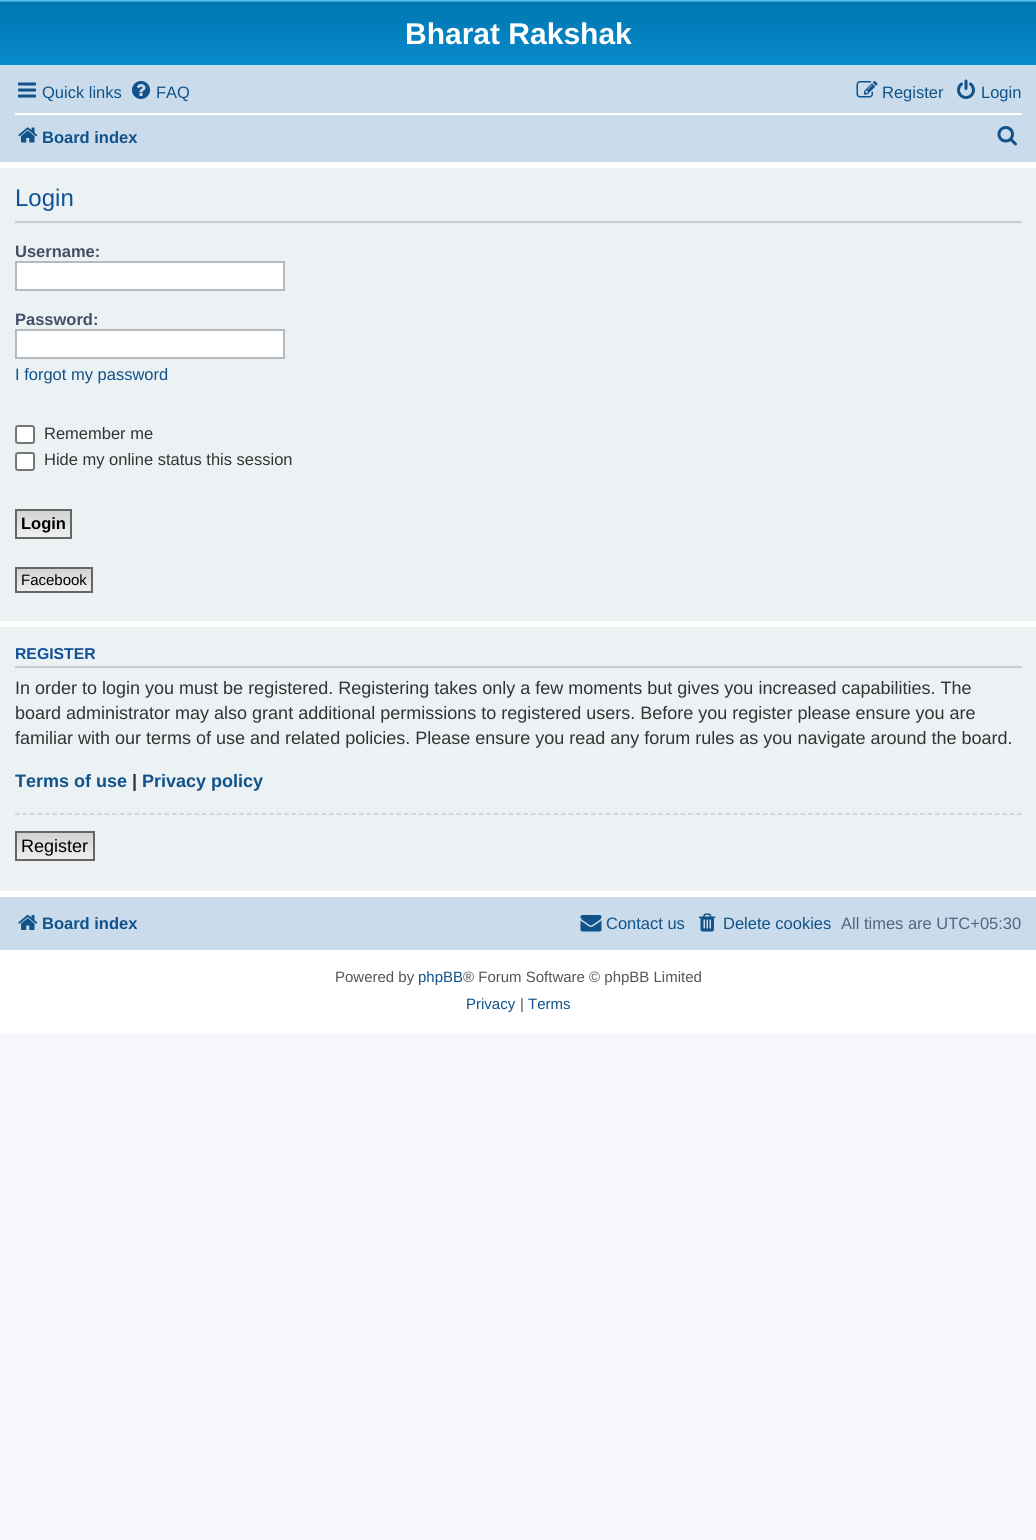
import math
import cairo



def rounded_rect(context, x, y, w, h, r):
    context.new_sub_path()
    for i, (u, v) in enumerate([(x + w - r, y + h - r), (x + r, y + h - r), (x + r, y + r), (x + w - r, y + r)]):
        context.arc(u, v, r, i * math.pi / 2, (i + 1) * math.pi / 2)
    context.close_path()


def draw_image(context, path, x, y, w, h):
    context.save()
    context.set_source_surface(cairo.ImageSurface.create_from_png(path), x, y)
    context.rectangle(x, y, w, h)
    context.fill()
    context.restore()


def draw(context):
    context.set_source_rgb(245 / 255, 247 / 255, 250 / 255)
    context.paint()
    context.set_source_rgb(1, 1, 1)
    context.rectangle(0, 162, 1036, 872)
    context.fill()
    gradient = cairo.LinearGradient(518, 0, 518, 138)
    gradient.add_color_stop_rgba(0, 106 / 255, 206 / 255, 1, 1)
    gradient.add_color_stop_rgba(0.02, 0, 118 / 255, 177 / 255, 1)
    gradient.add_color_stop_rgba(1, 18 / 255, 163 / 255, 235 / 255, 1)
    context.set_source(gradient)
    context.rectangle(0, 0, 1036, 65)
    context.fill()
    context.set_source_rgb(202 / 255, 220 / 255, 235 / 255)
    context.rectangle(0, 65, 1036, 97)
    context.fill()
    draw_image(context, "images/1.png", 18, 82, 18, 16)
    draw_image(context, "images/2.png", 132, 81, 18, 18)
    draw_image(context, "images/3.png", 856, 81, 22, 17)
    draw_image(context, "images/4.png", 957, 79, 18, 20)
    context.set_source_rgb(1, 1, 1)
    context.rectangle(15, 113, 1007, 2)
    context.fill()
    draw_image(context, "images/5.png", 18, 127, 20, 16)
    draw_image(context, "images/6.png", 997, 126, 20, 20)
    context.set_source_rgb(236 / 255, 241 / 255, 243 / 255)
    context.rectangle(0, 168, 1036, 453)
    context.fill()
    context.set_source_rgb(204 / 255, 204 / 255, 204 / 255)
    context.rectangle(15, 221, 1007, 2)
    context.fill()
    context.set_source_rgb(1, 1, 1)
    context.rectangle(16, 262, 268, 28)
    context.fill_preserve()
    context.set_source_rgb(180 / 255, 186 / 255, 192 / 255)
    context.stroke()
    context.set_source_rgb(1, 1, 1)
    context.rectangle(16, 330, 268, 28)
    context.fill_preserve()
    context.set_source_rgb(180 / 255, 186 / 255, 192 / 255)
    context.stroke()
    context.set_source_rgb(1, 1, 1)
    rounded_rect(context, 16, 426, 18, 17, 2)
    context.fill_preserve()
    context.set_source_rgb(118 / 255, 118 / 255, 118 / 255)
    context.stroke()
    context.set_source_rgb(1, 1, 1)
    rounded_rect(context, 16, 453, 18, 17, 2)
    context.fill_preserve()
    context.set_source_rgb(118 / 255, 118 / 255, 118 / 255)
    context.stroke()
    gradient = cairo.LinearGradient(44, 510, 44, 537)
    gradient.add_color_stop_rgba(0, 210 / 255, 210 / 255, 210 / 255, 1)
    gradient.add_color_stop_rgba(1, 239 / 255, 239 / 255, 239 / 255, 1)
    context.set_source(gradient)
    context.rectangle(17, 511, 53, 26)
    context.fill()
    context.rectangle(16, 510, 55, 28)
    context.set_source_rgb(102 / 255, 102 / 255, 102 / 255)
    context.stroke()
    gradient = cairo.LinearGradient(54, 569, 54, 591)
    gradient.add_color_stop_rgba(0, 210 / 255, 210 / 255, 210 / 255, 1)
    gradient.add_color_stop_rgba(1, 239 / 255, 239 / 255, 239 / 255, 1)
    context.set_source(gradient)
    context.rectangle(17, 569, 74, 22)
    context.fill()
    context.rectangle(16, 568, 76, 24)
    context.set_source_rgb(102 / 255, 102 / 255, 102 / 255)
    context.stroke()
    context.set_source_rgb(236 / 255, 241 / 255, 243 / 255)
    context.rectangle(0, 627, 1036, 264)
    context.fill()
    context.set_source_rgb(204 / 255, 204 / 255, 204 / 255)
    context.rectangle(15, 666, 1007, 2)
    context.fill()
    context.new_path()
    context.move_to(15, 814)
    context.line_to(1021.5, 814)
    context.set_line_width(1.5)
    context.set_dash([4.5, 2.98])
    context.stroke()
    gradient = cairo.LinearGradient(55, 833, 55, 860)
    gradient.add_color_stop_rgba(0, 210 / 255, 210 / 255, 210 / 255, 1)
    gradient.add_color_stop_rgba(1, 239 / 255, 239 / 255, 239 / 255, 1)
    context.set_source(gradient)
    context.rectangle(17, 833, 76, 26)
    context.fill()
    context.rectangle(16, 832, 78, 28)
    context.set_source_rgb(102 / 255, 102 / 255, 102 / 255)
    context.set_line_width(2)
    context.set_dash([])
    context.stroke()
    context.set_source_rgb(202 / 255, 220 / 255, 235 / 255)
    context.rectangle(0, 897, 1036, 53)
    context.fill()
    draw_image(context, "images/7.png", 18, 915, 20, 15)
    draw_image(context, "images/8.png", 580, 915, 22, 17)
    draw_image(context, "images/9.png", 699, 913, 17, 19)
    context.select_font_face("Liberation Sans", cairo.FontSlant.NORMAL, cairo.FontWeight.BOLD)
    context.set_font_size(30)
    context.set_source_rgb(1, 1, 1)
    context.move_to(405, 44)
    context.show_text("Bharat Rakshak")
    context.select_font_face("Liberation Sans")
    context.set_font_size(16.5)
    context.set_source_rgb(16 / 255, 82 / 255, 137 / 255)
    context.move_to(42, 98)
    context.show_text("Quick links")
    context.move_to(156, 98)
    context.show_text("FAQ")
    context.move_to(882, 98)
    context.show_text("Register")
    context.move_to(981, 98)
    context.show_text("Login")
    context.select_font_face("Liberation Sans", cairo.FontSlant.NORMAL, cairo.FontWeight.BOLD)
    context.move_to(42, 143)
    context.show_text("Board index")
    context.select_font_face("Liberation Sans")
    context.set_font_size(24)
    context.set_source_rgb(17 / 255, 80 / 255, 152 / 255)
    context.move_to(15, 206)
    context.show_text("Login")
    context.select_font_face("Liberation Sans", cairo.FontSlant.NORMAL, cairo.FontWeight.BOLD)
    context.set_font_size(16.5)
    context.set_source_rgb(66 / 255, 80 / 255, 103 / 255)
    context.move_to(15, 257)
    context.show_text("Username:")
    context.move_to(15, 325)
    context.show_text("Password:")
    context.select_font_face("Liberation Sans")
    context.set_source_rgb(16 / 255, 82 / 255, 137 / 255)
    context.move_to(15, 380)
    context.show_text("I forgot my password")
    context.set_source_rgb(51 / 255, 51 / 255, 51 / 255)
    context.move_to(44, 439)
    context.show_text("Remember me")
    context.move_to(44, 465)
    context.show_text("Hide my online status this session")
    context.select_font_face("Liberation Sans", cairo.FontSlant.NORMAL, cairo.FontWeight.BOLD)
    context.set_source_rgb(0, 0, 0)
    context.move_to(21, 529)
    context.show_text("Login")
    context.select_font_face("Liberation Sans")
    context.set_font_size(15)
    context.move_to(21, 585)
    context.show_text("Facebook")
    context.select_font_face("Liberation Sans", cairo.FontSlant.NORMAL, cairo.FontWeight.BOLD)
    context.set_font_size(15.75)
    context.set_source_rgb(17 / 255, 80 / 255, 152 / 255)
    context.move_to(15, 659)
    context.show_text("REGISTER")
    context.select_font_face("Liberation Sans")
    context.set_font_size(18)
    context.set_source_rgb(51 / 255, 51 / 255, 51 / 255)
    context.move_to(15, 694)
    context.show_text("In order to login you must be registered. Registering takes only a few moments but gives you increased capabilities. The")
    context.move_to(15, 719)
    context.show_text("board administrator may also grant additional permissions to registered users. Before you register please ensure you are")
    context.move_to(15, 744)
    context.show_text("familiar with our terms of use and related policies. Please ensure you read any forum rules as you navigate around the board.")
    context.select_font_face("Liberation Sans", cairo.FontSlant.NORMAL, cairo.FontWeight.BOLD)
    context.set_source_rgb(16 / 255, 82 / 255, 137 / 255)
    context.move_to(15, 787)
    context.show_text("Terms of use")
    context.set_source_rgb(51 / 255, 51 / 255, 51 / 255)
    context.move_to(132, 787)
    context.show_text("|")
    context.set_source_rgb(16 / 255, 82 / 255, 137 / 255)
    context.move_to(142, 787)
    context.show_text("Privacy policy")
    context.select_font_face("Liberation Sans")
    context.set_source_rgb(0, 0, 0)
    context.move_to(21, 852)
    context.show_text("Register")
    context.select_font_face("Liberation Sans", cairo.FontSlant.NORMAL, cairo.FontWeight.BOLD)
    context.set_font_size(16.5)
    context.set_source_rgb(16 / 255, 82 / 255, 137 / 255)
    context.move_to(42, 929)
    context.show_text("Board index")
    context.select_font_face("Liberation Sans")
    context.move_to(606, 929)
    context.show_text("Contact us")
    context.move_to(723, 929)
    context.show_text("Delete cookies")
    context.set_source_rgb(83 / 255, 100 / 255, 130 / 255)
    context.move_to(841, 929)
    context.show_text("All times are UTC+05:30")
    context.set_font_size(15)
    context.set_source_rgb(85 / 255, 85 / 255, 85 / 255)
    context.move_to(335, 982)
    context.show_text("Powered by")
    context.set_source_rgb(16 / 255, 82 / 255, 137 / 255)
    context.move_to(418, 982)
    context.show_text("phpBB")
    context.set_source_rgb(85 / 255, 85 / 255, 85 / 255)
    context.move_to(463, 982)
    context.show_text("® Forum Software © phpBB Limited")
    context.set_source_rgb(16 / 255, 82 / 255, 137 / 255)
    context.move_to(466, 1009)
    context.show_text("Privacy")
    context.set_source_rgb(85 / 255, 85 / 255, 85 / 255)
    context.move_to(520, 1009)
    context.show_text("|")
    context.set_source_rgb(16 / 255, 82 / 255, 137 / 255)
    context.move_to(528, 1009)
    context.show_text("Terms")


surface = cairo.ImageSurface(cairo.Format.RGB24, 1036, 1540)
context = cairo.Context(surface)
options = cairo.FontOptions()
options.set_hint_metrics(cairo.HintMetrics.OFF)
options.set_hint_style(cairo.HintStyle.NONE)
context.set_font_options(options)
context.set_miter_limit(4)
draw(context)
surface.write_to_png("out.png")
